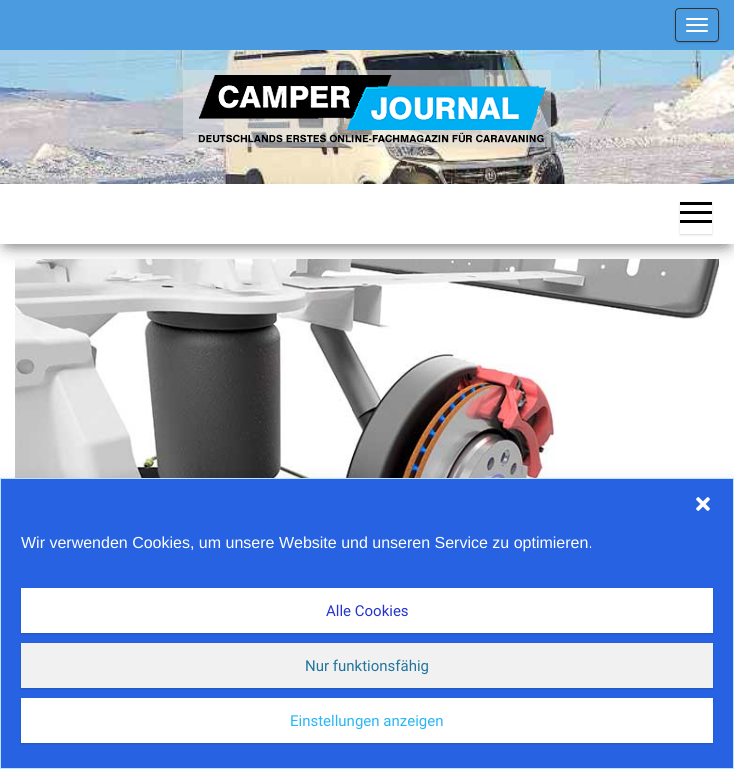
import math
import cairo



def rounded_rect(context, x, y, w, h, r):
    context.new_sub_path()
    for i, (u, v) in enumerate([(x + w - r, y + h - r), (x + r, y + h - r), (x + r, y + r), (x + w - r, y + r)]):
        context.arc(u, v, r, i * math.pi / 2, (i + 1) * math.pi / 2)
    context.close_path()


def draw_shadow(context, x, y, w, h, r, blur, alpha):
    context.push_group_with_content(cairo.Content.ALPHA)
    context.set_operator(cairo.Operator.SOURCE)
    for i in range(15, -16, -2):
        e = blur * i / 6
        if min(w, h) + 2 * e > 0:
            context.set_source_rgba(0, 0, 0, alpha * math.erfc((i - 1) / 8.5) / 2)
            rounded_rect(context, x - e, y - e, w + 2 * e, h + 2 * e, max(0, min(r + e + blur * .6, min(w, h) / 2 + e)))
            context.fill()
    context.mask(context.pop_group())


def draw_image(context, path, x, y, w, h):
    context.save()
    context.set_source_surface(cairo.ImageSurface.create_from_png(path), x, y)
    context.rectangle(x, y, w, h)
    context.fill()
    context.restore()


def draw(context):
    context.set_source_rgb(1, 1, 1)
    context.paint()
    context.set_source_rgb(75 / 255, 155 / 255, 225 / 255)
    context.rectangle(0, 0, 734, 50)
    context.fill()
    context.save()
    context.set_fill_rule(cairo.FillRule.EVEN_ODD)
    context.new_path()
    context.move_to(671, 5)
    context.line_to(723, 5)
    context.line_to(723, 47)
    context.line_to(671, 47)
    context.close_path()
    context.move_to(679, 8)
    context.line_to(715, 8)
    context.curve_to(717, 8, 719, 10, 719, 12)
    context.line_to(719, 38)
    context.curve_to(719, 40, 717, 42, 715, 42)
    context.line_to(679, 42)
    context.curve_to(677, 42, 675, 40, 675, 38)
    context.line_to(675, 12)
    context.curve_to(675, 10, 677, 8, 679, 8)
    context.close_path()
    context.clip()
    context.set_source_rgb(0, 0, 0)
    draw_shadow(context, 675, 9, 44, 34, 4, 1, 0.15)
    context.restore()
    rounded_rect(context, 675.5, 8.5, 43, 33, 3.5)
    context.set_source_rgb(51 / 255, 51 / 255, 51 / 255)
    context.set_line_width(1)
    context.stroke()
    context.set_source_rgb(1, 1, 1)
    rounded_rect(context, 686, 18, 22, 2, 1)
    context.fill()
    rounded_rect(context, 686, 24, 22, 2, 1)
    context.fill()
    rounded_rect(context, 686, 30, 22, 2, 1)
    context.fill()
    draw_image(context, "images/1.png", 0, 50, 734, 134)
    draw_image(context, "images/2.png", 183, 70, 368, 77)
    context.set_source_rgb(0, 0, 0)
    draw_shadow(context, 5, 197, 724, 50, 0, 5, 0.2)
    draw_shadow(context, 0, 187, 734, 60, 0, 10, 0.12)
    draw_shadow(context, 12, 206, 710, 36, 0, 10, 0.42)
    context.set_source_rgb(1, 1, 1)
    context.rectangle(0, 184, 734, 60)
    context.fill()
    context.save()
    context.set_fill_rule(cairo.FillRule.EVEN_ODD)
    context.new_path()
    context.move_to(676, 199)
    context.line_to(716, 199)
    context.line_to(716, 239)
    context.line_to(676, 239)
    context.close_path()
    context.move_to(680, 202)
    context.line_to(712, 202)
    context.line_to(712, 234)
    context.line_to(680, 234)
    context.close_path()
    context.clip()
    context.set_source_rgb(0, 0, 0)
    draw_shadow(context, 680, 203, 32, 32, 0, 1, 0.15)
    context.restore()
    context.set_source_rgb(0, 0, 0)
    context.rectangle(680, 202, 32, 3)
    context.fill()
    context.rectangle(680, 211, 32, 3)
    context.fill()
    context.rectangle(680, 220, 32, 3)
    context.fill()
    draw_image(context, "images/3.png", 15, 259, 704, 219)
    context.set_source_rgb(0, 0, 0)
    draw_shadow(context, 0, 488, 734, 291, 0, 10, 0.19)
    context.set_source_rgb(38 / 255, 98 / 255, 226 / 255)
    context.rectangle(0.5, 478.5, 733, 290)
    context.fill_preserve()
    context.set_source_rgb(188 / 255, 229 / 255, 1)
    context.stroke()
    draw_image(context, "images/4.png", 696, 497, 14, 14)
    context.set_source_rgb(0, 0, 0)
    draw_shadow(context, 21, 589, 692, 45, 0, 1, 0.15)
    context.set_source_rgb(1, 1, 1)
    context.rectangle(21, 588, 692, 45)
    context.fill()
    context.set_source_rgb(0, 0, 0)
    draw_shadow(context, 21, 644, 692, 45, 0, 1, 0.15)
    context.set_source_rgb(241 / 255, 241 / 255, 241 / 255)
    context.rectangle(21, 643, 692, 45)
    context.fill()
    context.set_source_rgb(0, 0, 0)
    draw_shadow(context, 21, 699, 692, 45, 0, 1, 0.15)
    context.set_source_rgb(1, 1, 1)
    context.rectangle(21, 698, 692, 45)
    context.fill()
    context.select_font_face("Liberation Sans")
    context.set_font_size(16)
    context.move_to(21, 548)
    context.show_text("Wir verwenden Cookies, um unsere Website und unseren Service zu optimieren.")
    context.select_font_face("Roboto")
    context.set_font_size(15)
    context.set_source_rgb(35 / 255, 50 / 255, 209 / 255)
    context.move_to(326, 616)
    context.show_text("Alle Cookies")
    context.set_source_rgb(33 / 255, 117 / 255, 155 / 255)
    context.move_to(305, 671)
    context.show_text("Nur funktionsfähig")
    context.set_source_rgb(41 / 255, 182 / 255, 246 / 255)
    context.move_to(290, 726)
    context.show_text("Einstellungen anzeigen")


surface = cairo.ImageSurface(cairo.Format.RGB24, 734, 769)
context = cairo.Context(surface)
options = cairo.FontOptions()
options.set_hint_metrics(cairo.HintMetrics.OFF)
options.set_hint_style(cairo.HintStyle.NONE)
context.set_font_options(options)
context.set_miter_limit(4)
draw(context)
surface.write_to_png("out.png")
